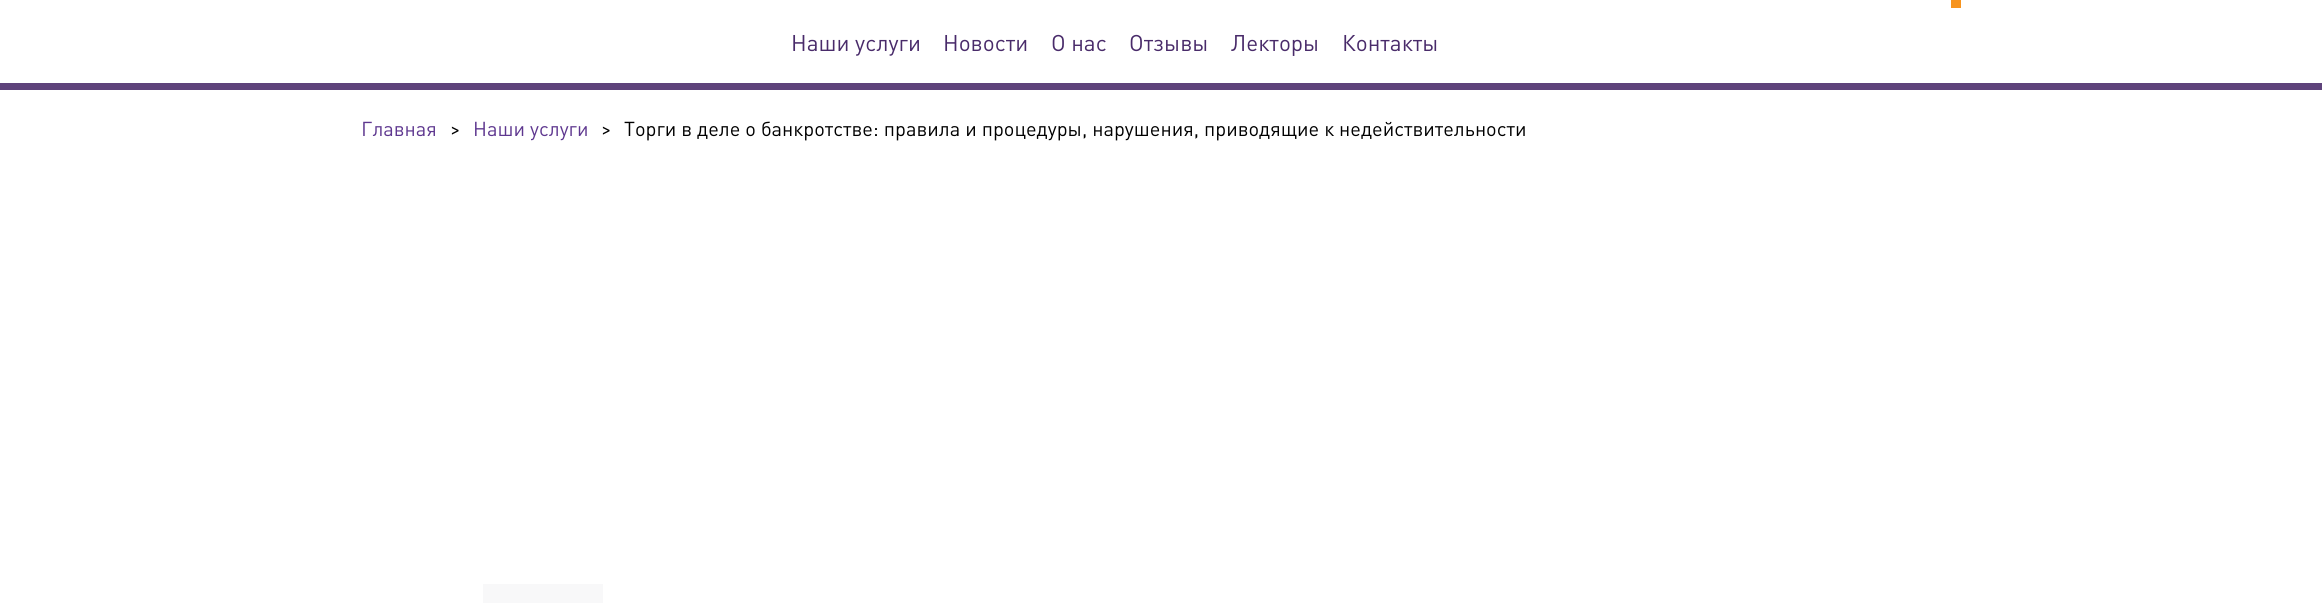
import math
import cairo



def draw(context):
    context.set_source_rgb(1, 1, 1)
    context.paint()
    context.set_source_rgb(94 / 255, 67 / 255, 123 / 255)
    context.rectangle(0, 83, 2322, 7)
    context.fill()
    context.set_source_rgb(247 / 255, 148 / 255, 30 / 255)
    context.rectangle(1951, 0, 10, 8)
    context.fill()
    context.set_source_rgb(248 / 255, 248 / 255, 249 / 255)
    context.rectangle(483, 584, 120, 19)
    context.fill()
    context.select_font_face("DIN")
    context.set_font_size(22.5)
    context.set_source_rgb(73 / 255, 43 / 255, 106 / 255)
    context.move_to(791, 51)
    context.show_text("Наши услуги")
    context.move_to(943, 51)
    context.show_text("Новости")
    context.move_to(1051, 51)
    context.show_text("О нас")
    context.move_to(1129, 51)
    context.show_text("Отзывы")
    context.move_to(1231, 51)
    context.show_text("Лекторы")
    context.move_to(1342, 51)
    context.show_text("Контакты")
    context.set_font_size(20)
    context.set_source_rgb(94 / 255, 55 / 255, 143 / 255)
    context.move_to(361, 136)
    context.show_text("Главная")
    context.set_source_rgb(0, 0, 0)
    context.move_to(450, 136)
    context.show_text(">")
    context.set_source_rgb(94 / 255, 55 / 255, 143 / 255)
    context.move_to(473, 136)
    context.show_text("Наши услуги")
    context.set_source_rgb(0, 0, 0)
    context.move_to(601, 136)
    context.show_text(">")
    context.move_to(624, 136)
    context.show_text("Торги в деле о банкротстве: правила и процедуры, нарушения, приводящие к недействительности")


surface = cairo.ImageSurface(cairo.Format.RGB24, 2322, 603)
context = cairo.Context(surface)
options = cairo.FontOptions()
options.set_hint_metrics(cairo.HintMetrics.OFF)
options.set_hint_style(cairo.HintStyle.NONE)
context.set_font_options(options)
context.set_miter_limit(4)
draw(context)
surface.write_to_png("out.png")
